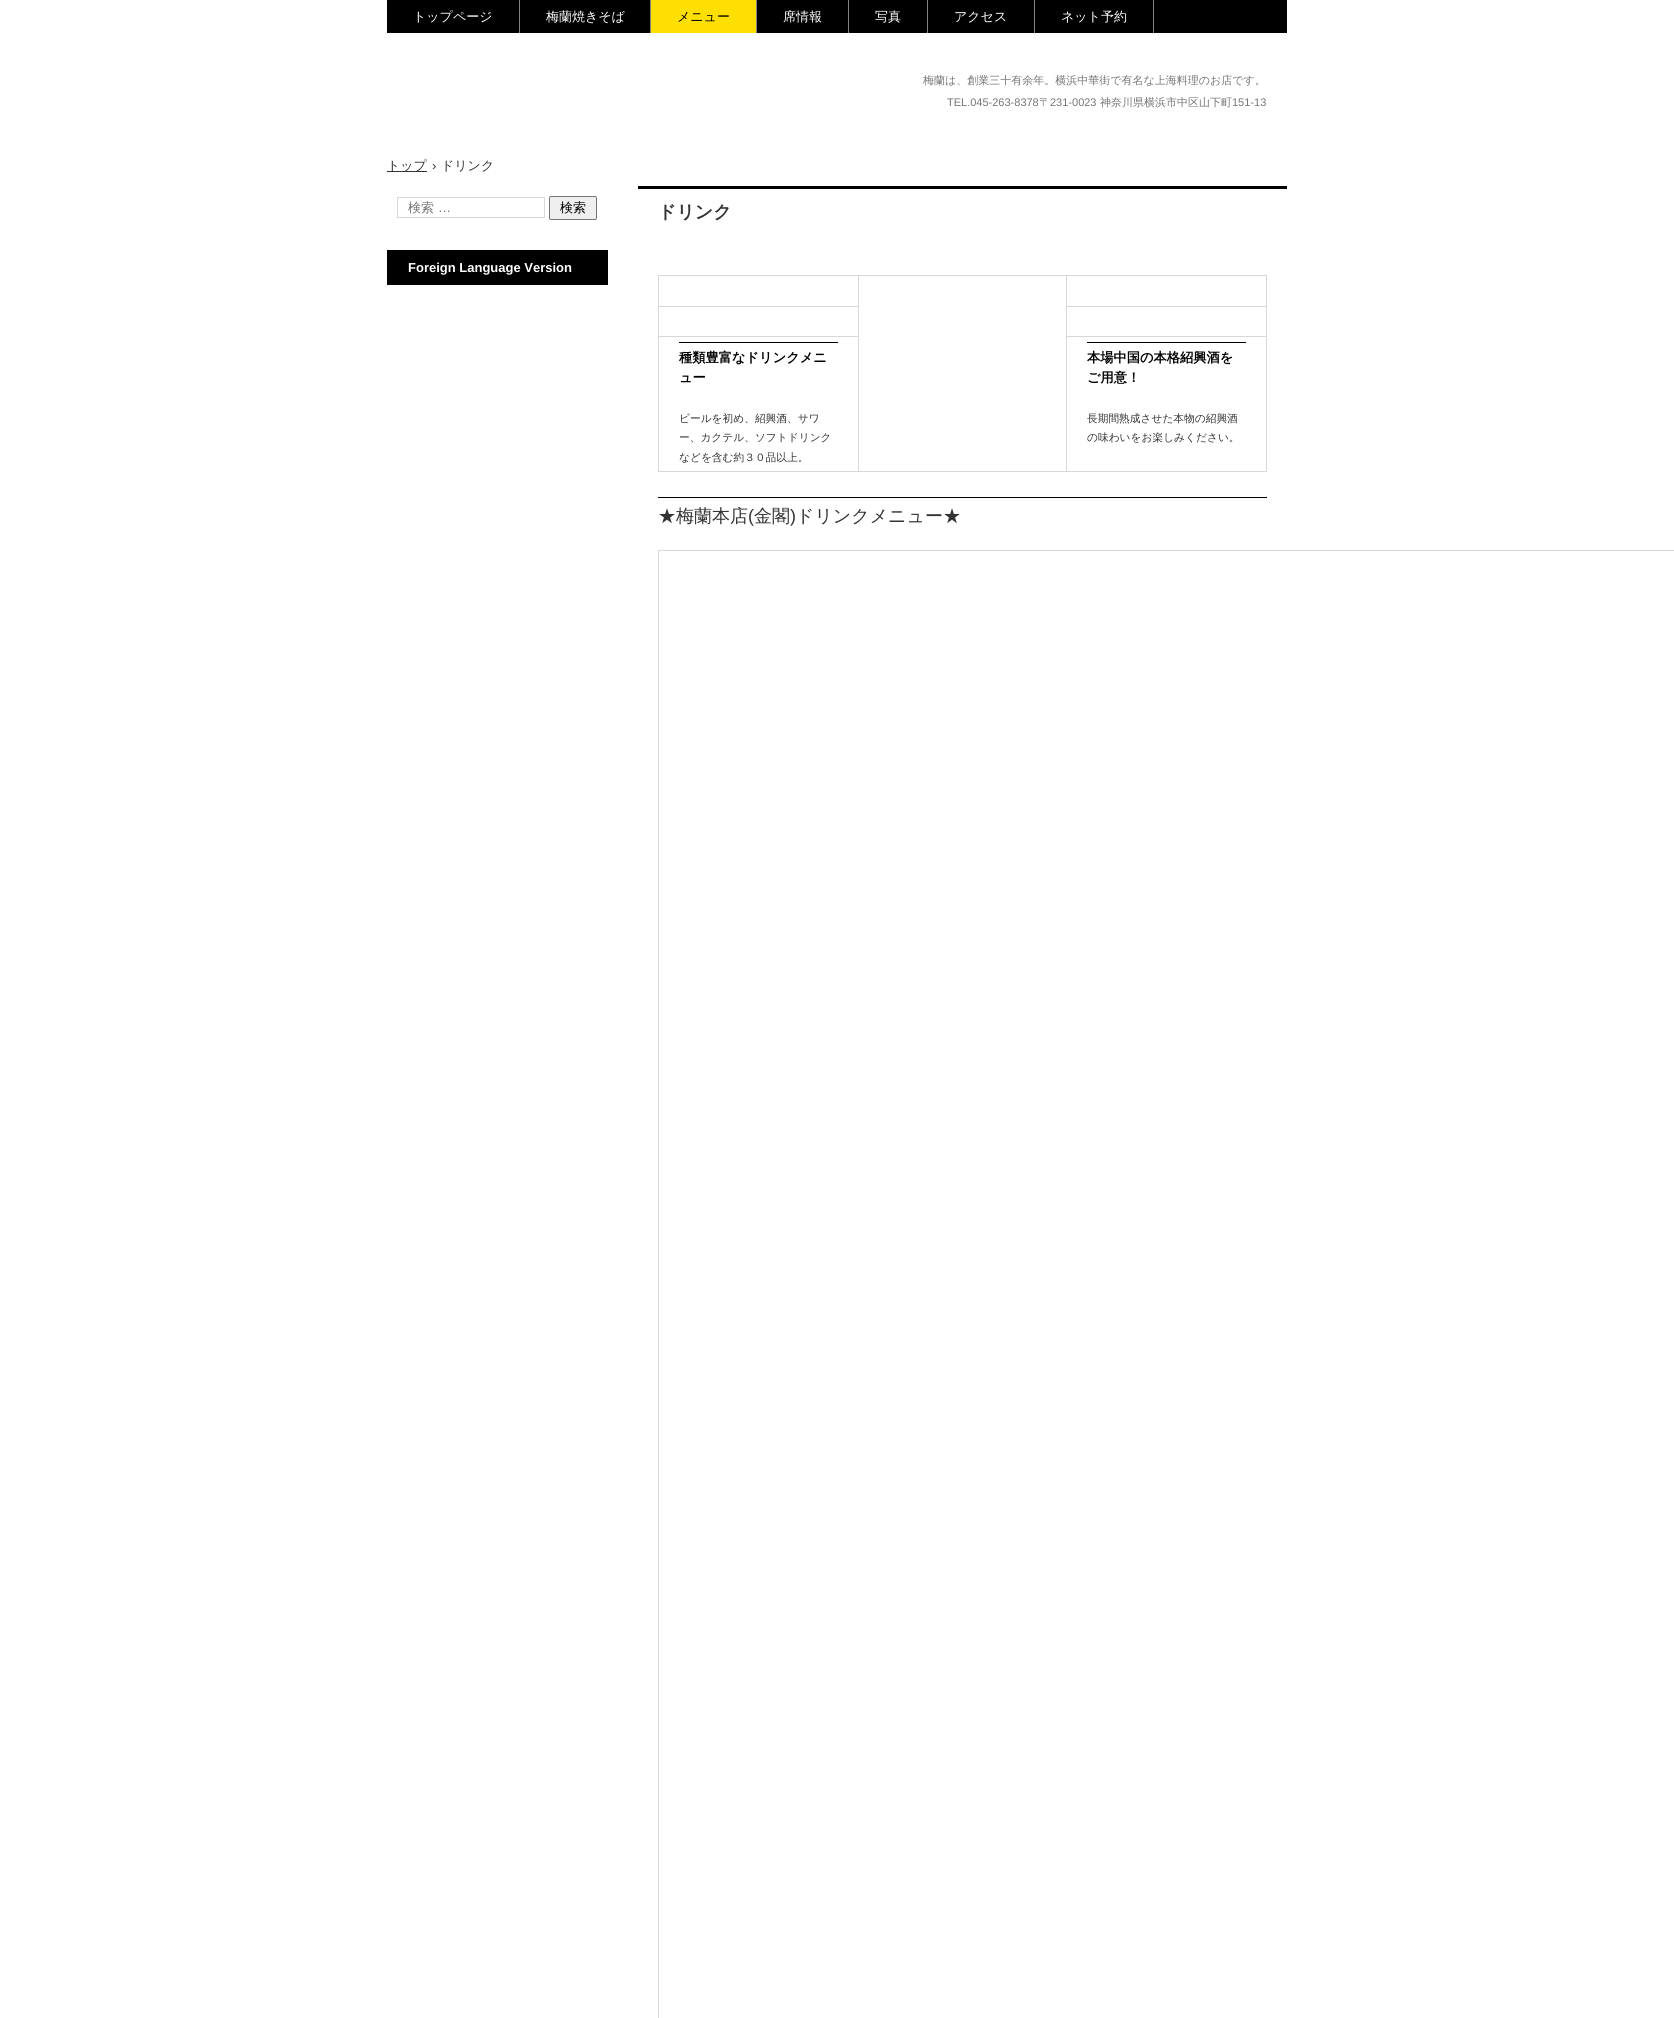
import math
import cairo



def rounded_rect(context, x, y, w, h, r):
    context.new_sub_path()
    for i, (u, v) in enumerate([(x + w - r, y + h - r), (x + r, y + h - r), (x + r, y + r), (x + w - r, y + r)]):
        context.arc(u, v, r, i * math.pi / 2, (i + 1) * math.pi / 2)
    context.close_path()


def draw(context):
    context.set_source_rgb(1, 1, 1)
    context.paint()
    context.set_source_rgb(0, 0, 0)
    context.rectangle(387, 0, 900, 33)
    context.fill()
    context.set_source_rgb(131 / 255, 131 / 255, 131 / 255)
    context.rectangle(519, 0, 1, 33)
    context.fill()
    context.rectangle(650, 0, 1, 33)
    context.fill()
    context.set_source_rgb(1, 223 / 255, 1 / 255)
    context.rectangle(651, 0, 105, 33)
    context.fill()
    context.set_source_rgb(131 / 255, 131 / 255, 131 / 255)
    context.rectangle(756, 0, 1, 33)
    context.fill()
    context.rectangle(848, 0, 1, 33)
    context.fill()
    context.rectangle(927, 0, 1, 33)
    context.fill()
    context.rectangle(1034, 0, 1, 33)
    context.fill()
    context.rectangle(1153, 0, 1, 33)
    context.fill()
    context.set_source_rgb(51 / 255, 51 / 255, 51 / 255)
    context.rectangle(387, 171, 40, 1)
    context.fill()
    context.rectangle(397.5, 197.5, 147, 20)
    context.set_source_rgb(216 / 255, 216 / 255, 216 / 255)
    context.set_line_width(1)
    context.stroke()
    context.set_source_rgb(239 / 255, 239 / 255, 239 / 255)
    rounded_rect(context, 549.5, 196.5, 47, 23, 1.5)
    context.fill_preserve()
    context.set_source_rgb(118 / 255, 118 / 255, 118 / 255)
    context.stroke()
    context.set_source_rgb(0, 0, 0)
    context.rectangle(387, 250, 221, 35)
    context.fill()
    context.rectangle(638, 186, 649, 3)
    context.fill()
    context.set_source_rgb(216 / 255, 216 / 255, 216 / 255)
    context.rectangle(658, 275, 609, 1)
    context.fill()
    context.rectangle(1266, 275, 1, 197)
    context.fill()
    context.rectangle(658, 471, 609, 1)
    context.fill()
    context.rectangle(658, 275, 1, 197)
    context.fill()
    context.rectangle(658, 306, 201, 1)
    context.fill()
    context.rectangle(1066, 306, 201, 1)
    context.fill()
    context.rectangle(1066, 336, 201, 1)
    context.fill()
    context.rectangle(1066, 275, 1, 197)
    context.fill()
    context.rectangle(658, 336, 201, 1)
    context.fill()
    context.rectangle(858, 275, 1, 197)
    context.fill()
    context.set_source_rgb(0, 0, 0)
    context.rectangle(679, 342, 159, 1)
    context.fill()
    context.rectangle(1087, 342, 159, 1)
    context.fill()
    context.rectangle(658, 497, 609, 1)
    context.fill()
    context.set_source_rgb(216 / 255, 216 / 255, 216 / 255)
    context.rectangle(658, 550, 1016, 1)
    context.fill()
    context.rectangle(658, 550, 1, 1468)
    context.fill()
    context.select_font_face("WenQuanYi Zen Hei Medium")
    context.set_font_size(13)
    context.set_source_rgb(1, 1, 1)
    context.move_to(413, 21)
    context.show_text("トップページ")
    context.move_to(546, 21)
    context.show_text("梅蘭焼きそば")
    context.set_source_rgb(0, 0, 0)
    context.move_to(677, 21)
    context.show_text("メニュー")
    context.set_source_rgb(1, 1, 1)
    context.move_to(783, 21)
    context.show_text("席情報")
    context.move_to(875, 21)
    context.show_text("写真")
    context.move_to(954, 21)
    context.show_text("アクセス")
    context.move_to(1061, 21)
    context.show_text("ネット予約")
    context.set_font_size(11)
    context.set_source_rgb(117 / 255, 117 / 255, 117 / 255)
    context.move_to(923, 84)
    context.show_text("梅蘭は、創業三十有余年。横浜中華街で有名な上海料理のお店です。")
    context.select_font_face("Liberation Sans")
    context.move_to(947, 106)
    context.show_text("TEL.045-263-8378")
    context.select_font_face("WenQuanYi Zen Hei Medium")
    context.move_to(1039, 106)
    context.show_text("〒")
    context.select_font_face("Liberation Sans")
    context.move_to(1050, 106)
    context.show_text("231-0023")
    context.select_font_face("WenQuanYi Zen Hei Medium")
    context.move_to(1100, 106)
    context.show_text("神奈川県横浜市中区山下町")
    context.select_font_face("Liberation Sans")
    context.move_to(1232, 106)
    context.show_text("151-13")
    context.select_font_face("WenQuanYi Zen Hei Medium")
    context.set_font_size(13)
    context.set_source_rgb(51 / 255, 51 / 255, 51 / 255)
    context.move_to(387, 170)
    context.show_text("トップ")
    context.select_font_face("Liberation Sans")
    context.move_to(432, 170)
    context.show_text("›")
    context.select_font_face("WenQuanYi Zen Hei Medium")
    context.move_to(441, 170)
    context.show_text("ドリンク")
    context.set_source_rgb(117 / 255, 117 / 255, 117 / 255)
    context.move_to(408, 212)
    context.show_text("検索")
    context.select_font_face("Liberation Sans")
    context.move_to(438, 212)
    context.show_text("…")
    context.select_font_face("WenQuanYi Zen Hei Medium")
    context.set_source_rgb(0, 0, 0)
    context.move_to(560, 212)
    context.show_text("検索")
    context.select_font_face("Liberation Sans", cairo.FontSlant.NORMAL, cairo.FontWeight.BOLD)
    context.set_source_rgb(1, 1, 1)
    context.move_to(408, 272)
    context.show_text("Foreign Language Version")
    context.select_font_face("WenQuanYi Zen Hei", cairo.FontSlant.NORMAL, cairo.FontWeight.BOLD)
    context.set_font_size(18)
    context.set_source_rgb(51 / 255, 51 / 255, 51 / 255)
    context.move_to(658, 218)
    context.show_text("ドリンク")
    context.set_font_size(13.25)
    context.set_source_rgb(0, 0, 0)
    context.move_to(679, 362)
    context.show_text("種類豊富なドリンクメニ")
    context.move_to(679, 382)
    context.show_text("ュー")
    context.select_font_face("WenQuanYi Zen Hei Medium")
    context.set_font_size(10.7)
    context.set_source_rgb(51 / 255, 51 / 255, 51 / 255)
    context.move_to(679, 422)
    context.show_text("ビールを初め、紹興酒、サワ")
    context.move_to(679, 441)
    context.show_text("ー、カクテル、ソフトドリンク")
    context.move_to(679, 461)
    context.show_text("などを含む約３０品以上。")
    context.select_font_face("WenQuanYi Zen Hei", cairo.FontSlant.NORMAL, cairo.FontWeight.BOLD)
    context.set_font_size(13.25)
    context.set_source_rgb(0, 0, 0)
    context.move_to(1087, 362)
    context.show_text("本場中国の本格紹興酒を")
    context.move_to(1087, 382)
    context.show_text("ご用意！")
    context.select_font_face("WenQuanYi Zen Hei Medium")
    context.set_font_size(10.7)
    context.set_source_rgb(51 / 255, 51 / 255, 51 / 255)
    context.move_to(1087, 422)
    context.show_text("長期間熟成させた本物の紹興酒")
    context.move_to(1087, 441)
    context.show_text("の味わいをお楽しみください。")
    context.set_font_size(18)
    context.move_to(658, 522)
    context.show_text("★梅蘭本店")
    context.select_font_face("Liberation Sans")
    context.move_to(748, 522)
    context.show_text("(")
    context.select_font_face("WenQuanYi Zen Hei Medium")
    context.move_to(754, 522)
    context.show_text("金閣")
    context.select_font_face("Liberation Sans")
    context.move_to(790, 522)
    context.show_text(")")
    context.select_font_face("WenQuanYi Zen Hei Medium")
    context.move_to(796, 522)
    context.show_text("ドリンクメニュー★")


surface = cairo.ImageSurface(cairo.Format.RGB24, 1674, 2018)
context = cairo.Context(surface)
options = cairo.FontOptions()
options.set_hint_metrics(cairo.HintMetrics.OFF)
options.set_hint_style(cairo.HintStyle.NONE)
context.set_font_options(options)
context.set_miter_limit(4)
draw(context)
surface.write_to_png("out.png")
